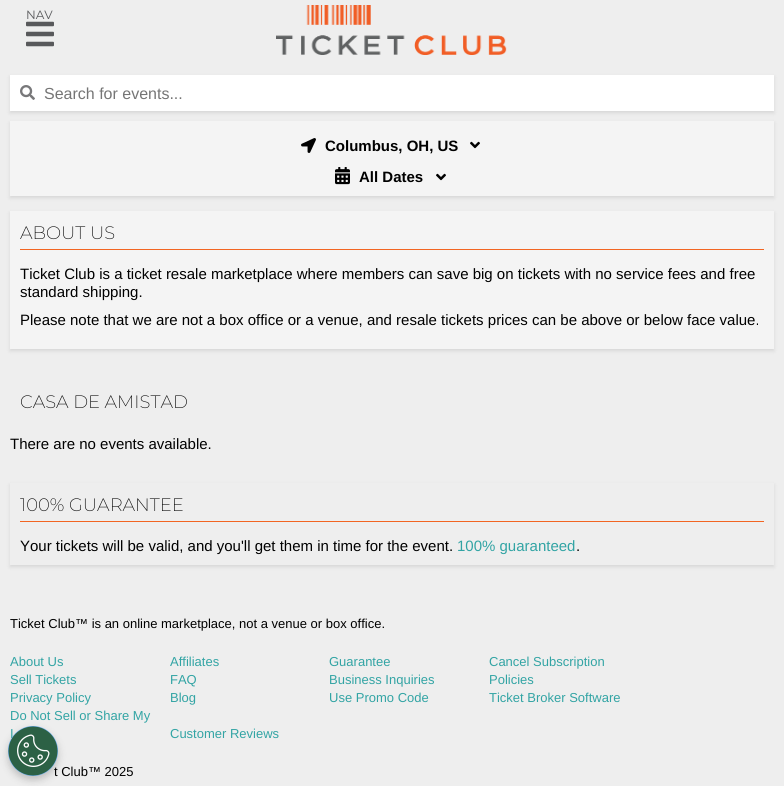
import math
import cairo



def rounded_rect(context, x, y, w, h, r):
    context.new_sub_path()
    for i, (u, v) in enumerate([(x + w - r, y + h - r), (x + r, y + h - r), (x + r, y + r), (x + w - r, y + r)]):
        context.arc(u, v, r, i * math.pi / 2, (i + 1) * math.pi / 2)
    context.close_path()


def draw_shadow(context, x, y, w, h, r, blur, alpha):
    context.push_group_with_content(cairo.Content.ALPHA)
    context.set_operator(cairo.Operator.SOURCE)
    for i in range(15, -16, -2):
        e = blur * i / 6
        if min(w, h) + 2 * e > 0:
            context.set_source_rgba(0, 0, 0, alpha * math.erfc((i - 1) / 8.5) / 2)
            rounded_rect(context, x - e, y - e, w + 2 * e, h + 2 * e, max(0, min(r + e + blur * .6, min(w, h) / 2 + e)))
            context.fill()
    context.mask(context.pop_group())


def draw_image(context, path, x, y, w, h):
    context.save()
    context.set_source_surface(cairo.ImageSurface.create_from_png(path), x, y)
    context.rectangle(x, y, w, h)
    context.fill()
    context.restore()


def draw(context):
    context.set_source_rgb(238 / 255, 238 / 255, 238 / 255)
    context.paint()
    draw_image(context, "images/1.png", 26, 21, 28, 26)
    draw_image(context, "images/2.png", 276, 5, 231, 50)
    context.set_source_rgb(0, 0, 0)
    draw_shadow(context, 10, 77, 764, 36, 0, 2, 0.1)
    context.set_source_rgb(1, 1, 1)
    context.rectangle(10, 75, 764, 36)
    context.fill()
    draw_image(context, "images/3.png", 20, 85, 15, 15)
    context.set_source_rgb(0, 0, 0)
    draw_shadow(context, 10, 123, 764, 75, 0, 2, 0.1)
    context.set_source_rgb(244 / 255, 244 / 255, 244 / 255)
    context.rectangle(10, 121, 764, 75)
    context.fill()
    draw_image(context, "images/4.png", 301, 138, 15, 15)
    draw_image(context, "images/5.png", 470, 141, 10, 8)
    draw_image(context, "images/6.png", 335, 167, 15, 18)
    draw_image(context, "images/5.png", 436, 173, 10, 8)
    context.set_source_rgb(0, 0, 0)
    draw_shadow(context, 10, 213, 764, 138, 0, 2, 0.1)
    context.set_source_rgb(244 / 255, 244 / 255, 244 / 255)
    context.rectangle(10, 211, 764, 138)
    context.fill()
    context.set_source_rgb(242 / 255, 101 / 255, 34 / 255)
    context.rectangle(20, 249, 744, 1)
    context.fill()
    context.save()
    context.set_fill_rule(cairo.FillRule.EVEN_ODD)
    context.new_path()
    context.move_to(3, 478)
    context.line_to(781, 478)
    context.line_to(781, 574)
    context.line_to(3, 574)
    context.close_path()
    context.move_to(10, 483)
    context.line_to(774, 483)
    context.line_to(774, 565)
    context.line_to(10, 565)
    context.close_path()
    context.clip()
    context.set_source_rgb(0, 0, 0)
    draw_shadow(context, 10, 485, 764, 82, 0, 2, 0.1)
    context.restore()
    context.rectangle(20, 521, 744, 1)
    context.fill()
    context.set_source_rgb(0, 0, 0)
    draw_shadow(context, 8, 730, 50, 50, 25, 4, 0.2)
    context.select_font_face("Montserrat")
    context.set_font_size(12)
    context.set_source_rgb(88 / 255, 89 / 255, 91 / 255)
    context.move_to(26, 19)
    context.show_text("NAV")
    context.select_font_face("Liberation Sans")
    context.set_font_size(16)
    context.set_source_rgb(117 / 255, 117 / 255, 117 / 255)
    context.move_to(44, 99)
    context.show_text("Search for events...")
    context.select_font_face("Liberation Sans", cairo.FontSlant.NORMAL, cairo.FontWeight.BOLD)
    context.set_font_size(15)
    context.set_source_rgb(0, 0, 0)
    context.move_to(325, 151)
    context.show_text("Columbus, OH, US")
    context.move_to(359, 182)
    context.show_text("All Dates")
    context.select_font_face("Montserrat ExtraLight")
    context.set_font_size(18)
    context.move_to(20, 239)
    context.show_text("ABOUT US")
    context.select_font_face("Liberation Sans")
    context.set_font_size(15)
    context.move_to(20, 279)
    context.show_text("Ticket Club is a ticket resale marketplace where members can save big on tickets with no service fees and free")
    context.move_to(20, 297)
    context.show_text("standard shipping.")
    context.move_to(20, 325)
    context.show_text("Please note that we are not a box office or a venue, and resale tickets prices can be above or below face value.")
    context.select_font_face("Montserrat ExtraLight")
    context.set_font_size(18)
    context.move_to(20, 408)
    context.show_text("CASA DE AMISTAD")
    context.select_font_face("Liberation Sans")
    context.set_font_size(15)
    context.move_to(10, 449)
    context.show_text("There are no events available.")
    context.select_font_face("Montserrat ExtraLight")
    context.set_font_size(18)
    context.move_to(20, 511)
    context.show_text("100% GUARANTEE")
    context.select_font_face("Liberation Sans")
    context.set_font_size(15)
    context.move_to(20, 551)
    context.show_text("Your tickets will be valid, and you'll get them in time for the event.")
    context.set_source_rgb(50 / 255, 164 / 255, 164 / 255)
    context.move_to(457, 551)
    context.show_text("100% guaranteed")
    context.set_source_rgb(0, 0, 0)
    context.move_to(576, 551)
    context.show_text(".")
    context.set_font_size(13)
    context.move_to(10, 628)
    context.show_text("Ticket Club™ is an online marketplace, not a venue or box office.")
    context.set_source_rgb(50 / 255, 164 / 255, 164 / 255)
    context.move_to(10, 666)
    context.show_text("About Us")
    context.move_to(170, 666)
    context.show_text("Affiliates")
    context.move_to(329, 666)
    context.show_text("Guarantee")
    context.move_to(489, 666)
    context.show_text("Cancel Subscription")
    context.move_to(10, 684)
    context.show_text("Sell Tickets")
    context.move_to(170, 684)
    context.show_text("FAQ")
    context.move_to(329, 684)
    context.show_text("Business Inquiries")
    context.move_to(489, 684)
    context.show_text("Policies")
    context.move_to(10, 702)
    context.show_text("Privacy Policy")
    context.move_to(170, 702)
    context.show_text("Blog")
    context.move_to(329, 702)
    context.show_text("Use Promo Code")
    context.move_to(489, 702)
    context.show_text("Ticket Broker Software")
    context.move_to(10, 720)
    context.show_text("Do Not Sell or Share My")
    context.move_to(10, 738)
    context.show_text("I")
    context.move_to(170, 738)
    context.show_text("Customer Reviews")
    context.set_source_rgb(0, 0, 0)
    context.move_to(54, 776)
    context.show_text("t Club™ 2025")
    context.set_source_rgb(106 / 255, 170 / 255, 228 / 255)
    context.new_path()
    context.arc(33, 751, 25, 0, 2 * math.pi)
    context.fill()
    draw_image(context, "images/7.png", 8, 726, 50, 50)


surface = cairo.ImageSurface(cairo.Format.RGB24, 784, 786)
context = cairo.Context(surface)
options = cairo.FontOptions()
options.set_hint_metrics(cairo.HintMetrics.OFF)
options.set_hint_style(cairo.HintStyle.NONE)
context.set_font_options(options)
context.set_miter_limit(4)
draw(context)
surface.write_to_png("out.png")
